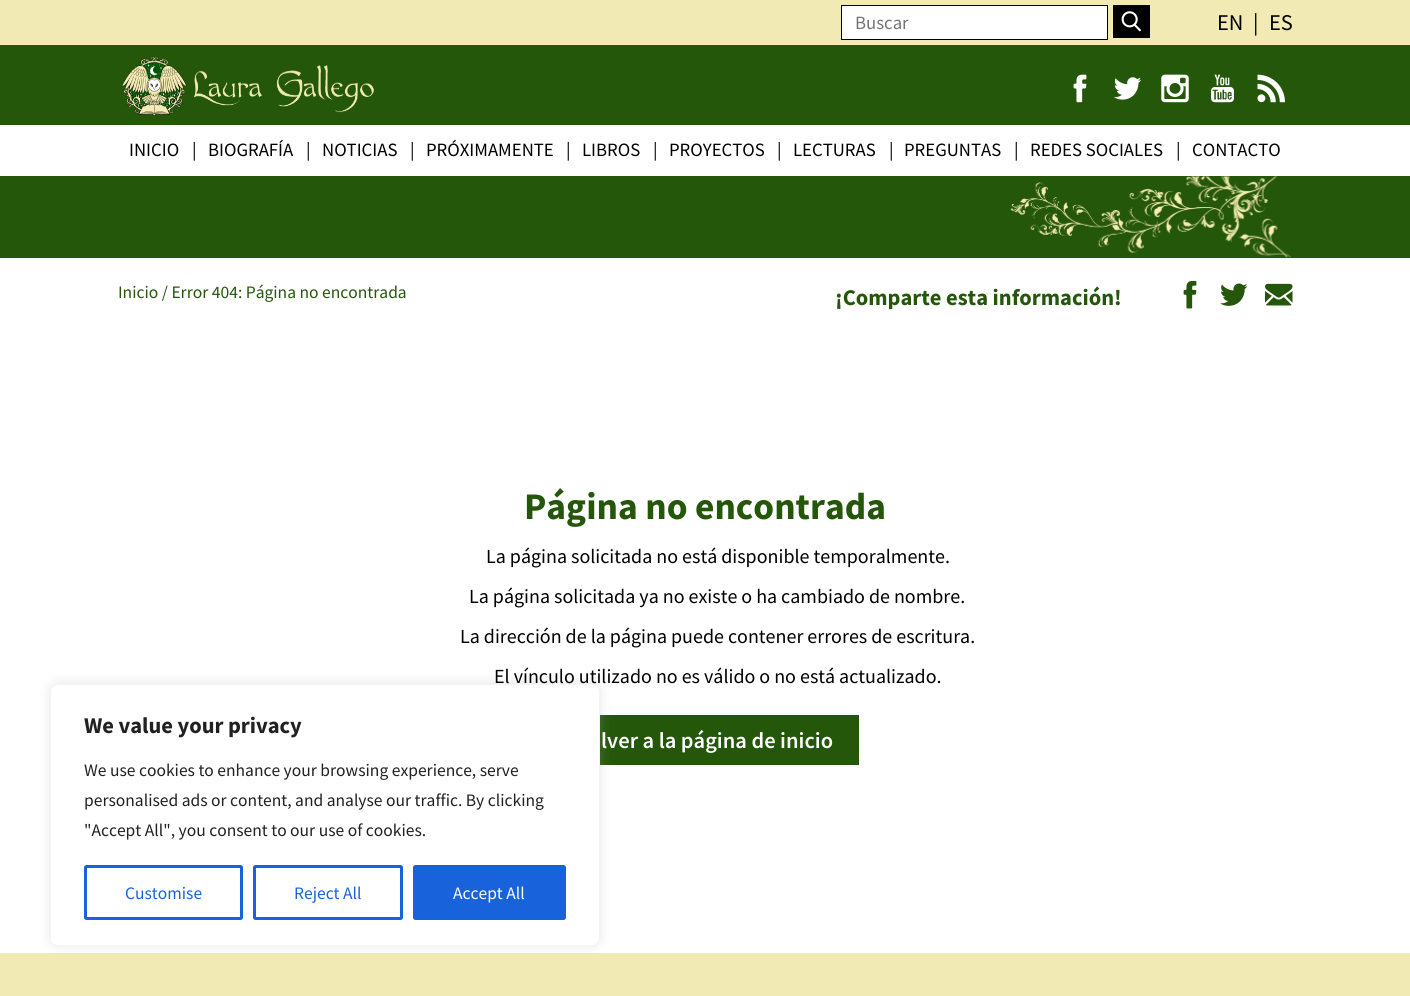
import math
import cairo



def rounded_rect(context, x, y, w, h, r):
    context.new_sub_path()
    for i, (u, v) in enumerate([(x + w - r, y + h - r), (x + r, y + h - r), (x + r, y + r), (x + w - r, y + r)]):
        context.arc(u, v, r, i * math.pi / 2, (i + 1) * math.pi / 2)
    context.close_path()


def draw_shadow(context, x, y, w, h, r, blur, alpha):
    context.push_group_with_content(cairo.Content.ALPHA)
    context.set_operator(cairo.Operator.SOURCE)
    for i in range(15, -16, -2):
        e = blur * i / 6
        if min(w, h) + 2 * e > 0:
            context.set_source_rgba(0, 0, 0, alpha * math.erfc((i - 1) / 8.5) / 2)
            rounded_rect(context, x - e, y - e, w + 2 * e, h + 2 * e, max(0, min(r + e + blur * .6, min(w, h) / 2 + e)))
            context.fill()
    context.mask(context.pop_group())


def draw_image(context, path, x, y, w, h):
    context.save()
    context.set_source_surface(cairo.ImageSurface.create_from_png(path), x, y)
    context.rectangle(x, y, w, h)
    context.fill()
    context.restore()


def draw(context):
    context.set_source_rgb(1, 1, 1)
    context.paint()
    context.set_source_rgb(36 / 255, 87 / 255, 10 / 255)
    context.rectangle(0, 45, 1410, 80)
    context.fill()
    context.set_source_rgb(241 / 255, 234 / 255, 180 / 255)
    context.rectangle(0, 0, 1410, 45)
    context.fill()
    context.set_source_rgb(1, 1, 1)
    context.rectangle(841.5, 5.5, 266, 34)
    context.fill_preserve()
    context.set_source_rgb(0, 0, 0)
    context.set_line_width(1)
    context.stroke()
    context.rectangle(1113, 5, 37, 33)
    context.fill()
    draw_image(context, "images/1.png", 1121, 11, 20, 21)
    draw_image(context, "images/2.png", 122, 56, 252, 60)
    draw_image(context, "images/3.png", 1073, 74, 14, 29)
    draw_image(context, "images/4.png", 1113, 77, 28, 23)
    draw_image(context, "images/5.png", 1161, 74, 28, 29)
    draw_image(context, "images/6.png", 1211, 74, 23, 29)
    draw_image(context, "images/7.png", 1257, 74, 28, 29)
    context.set_source_rgb(36 / 255, 87 / 255, 10 / 255)
    context.rectangle(0, 176, 1410, 82)
    context.fill()
    draw_image(context, "images/8.png", 1010, 176, 282, 82)
    draw_image(context, "images/9.png", 1183, 280, 14, 29)
    draw_image(context, "images/10.png", 1220, 283, 28, 23)
    draw_image(context, "images/11.png", 1265, 283, 28, 23)
    context.rectangle(600, 715, 259, 50)
    context.fill()
    context.set_source_rgb(241 / 255, 234 / 255, 180 / 255)
    context.rectangle(0, 953, 1410, 43)
    context.fill()
    context.set_source_rgb(172 / 255, 171 / 255, 171 / 255)
    draw_shadow(context, 50, 683, 550, 262, 8, 6, 0.3)
    context.set_source_rgb(1, 1, 1)
    rounded_rect(context, 50.5, 684.5, 549, 261, 7.5)
    context.fill_preserve()
    context.set_source_rgb(244 / 255, 244 / 255, 244 / 255)
    context.stroke()
    rounded_rect(context, 85.5, 866.5, 156, 52, 1)
    context.set_source_rgb(24 / 255, 99 / 255, 220 / 255)
    context.set_line_width(3)
    context.stroke()
    rounded_rect(context, 254.5, 866.5, 147, 52, 1)
    context.stroke()
    rounded_rect(context, 414.5, 866.5, 150, 52, 1)
    context.fill_preserve()
    context.stroke()
    context.select_font_face("Source Sans Pro")
    context.set_font_size(18.75)
    context.set_source_rgb(117 / 255, 117 / 255, 117 / 255)
    context.move_to(855, 29)
    context.show_text("Buscar")
    context.set_font_size(22.5)
    context.set_source_rgb(1 / 255, 0, 0)
    context.move_to(1217, 30)
    context.show_text("EN")
    context.move_to(1253, 30)
    context.show_text("|")
    context.move_to(1269, 30)
    context.show_text("ES")
    context.set_font_size(18.75)
    context.move_to(129, 156)
    context.show_text("INICIO")
    context.move_to(192, 156)
    context.show_text("|")
    context.move_to(208, 156)
    context.show_text("BIOGRAFÍA")
    context.move_to(306, 156)
    context.show_text("|")
    context.move_to(322, 156)
    context.show_text("NOTICIAS")
    context.move_to(410, 156)
    context.show_text("|")
    context.move_to(426, 156)
    context.show_text("PRÓXIMAMENTE")
    context.move_to(566, 156)
    context.show_text("|")
    context.move_to(582, 156)
    context.show_text("LIBROS")
    context.move_to(653, 156)
    context.show_text("|")
    context.move_to(669, 156)
    context.show_text("PROYECTOS")
    context.move_to(777, 156)
    context.show_text("|")
    context.move_to(793, 156)
    context.show_text("LECTURAS")
    context.move_to(889, 156)
    context.show_text("|")
    context.move_to(904, 156)
    context.show_text("PREGUNTAS")
    context.move_to(1014, 156)
    context.show_text("|")
    context.move_to(1030, 156)
    context.show_text("REDES SOCIALES")
    context.move_to(1176, 156)
    context.show_text("|")
    context.move_to(1192, 156)
    context.show_text("CONTACTO")
    context.set_font_size(17.5)
    context.set_source_rgb(36 / 255, 87 / 255, 10 / 255)
    context.move_to(118, 298)
    context.show_text("Inicio / Error 404: Página no encontrada")
    context.select_font_face("Source Sans Pro", cairo.FontSlant.NORMAL, cairo.FontWeight.BOLD)
    context.set_font_size(22.5)
    context.move_to(835, 305)
    context.show_text("¡Comparte esta información!")
    context.set_font_size(37.5)
    context.move_to(524, 519)
    context.show_text("Página no encontrada")
    context.select_font_face("Source Sans Pro")
    context.set_font_size(20)
    context.set_source_rgb(1 / 255, 0, 0)
    context.move_to(486, 563)
    context.show_text("La página solicitada no está disponible temporalmente.")
    context.move_to(469, 603)
    context.show_text("La página solicitada ya no existe o ha cambiado de nombre.")
    context.move_to(460, 643)
    context.show_text("La dirección de la página puede contener errores de escritura.")
    context.move_to(494, 683)
    context.show_text("El vínculo utilizado no es válido o no está actualizado.")
    context.select_font_face("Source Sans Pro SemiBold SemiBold")
    context.set_font_size(22.5)
    context.set_source_rgb(1, 1, 1)
    context.move_to(601, 748)
    context.show_text("lver a la página de inicio")
    context.select_font_face("Source Sans Pro", cairo.FontSlant.NORMAL, cairo.FontWeight.BOLD)
    context.set_source_rgb(33 / 255, 33 / 255, 33 / 255)
    context.move_to(84, 733)
    context.show_text("We value your privacy")
    context.select_font_face("Source Sans Pro")
    context.set_font_size(17.5)
    context.move_to(84, 776)
    context.show_text("We use cookies to enhance your browsing experience, serve")
    context.move_to(84, 806)
    context.show_text("personalised ads or content, and analyse our traffic. By clicking")
    context.move_to(84, 836)
    context.show_text("\"Accept All\", you consent to our use of cookies.")
    context.set_source_rgb(24 / 255, 99 / 255, 220 / 255)
    context.move_to(125, 899)
    context.show_text("Customise")
    context.move_to(294, 899)
    context.show_text("Reject All")
    context.set_source_rgb(1, 1, 1)
    context.move_to(453, 899)
    context.show_text("Accept All")


surface = cairo.ImageSurface(cairo.Format.RGB24, 1410, 996)
context = cairo.Context(surface)
options = cairo.FontOptions()
options.set_hint_metrics(cairo.HintMetrics.OFF)
options.set_hint_style(cairo.HintStyle.NONE)
context.set_font_options(options)
context.set_miter_limit(4)
draw(context)
surface.write_to_png("out.png")
